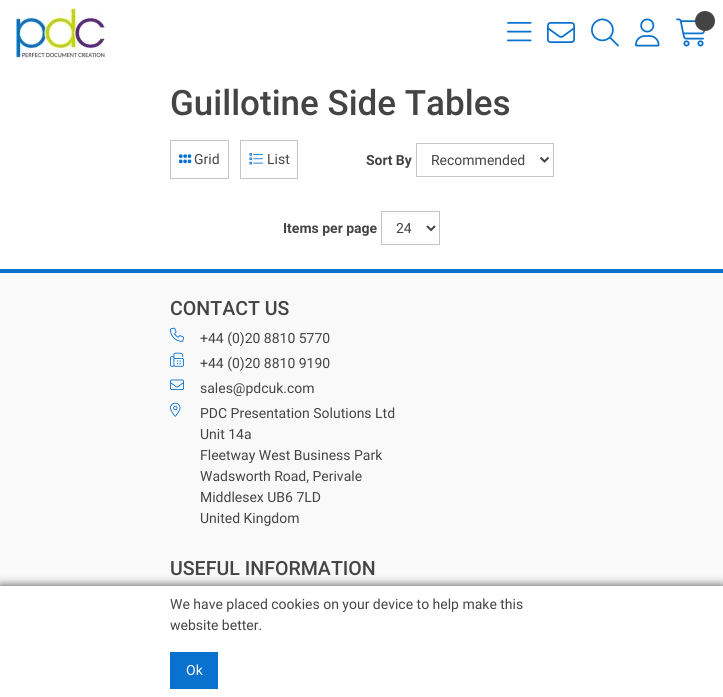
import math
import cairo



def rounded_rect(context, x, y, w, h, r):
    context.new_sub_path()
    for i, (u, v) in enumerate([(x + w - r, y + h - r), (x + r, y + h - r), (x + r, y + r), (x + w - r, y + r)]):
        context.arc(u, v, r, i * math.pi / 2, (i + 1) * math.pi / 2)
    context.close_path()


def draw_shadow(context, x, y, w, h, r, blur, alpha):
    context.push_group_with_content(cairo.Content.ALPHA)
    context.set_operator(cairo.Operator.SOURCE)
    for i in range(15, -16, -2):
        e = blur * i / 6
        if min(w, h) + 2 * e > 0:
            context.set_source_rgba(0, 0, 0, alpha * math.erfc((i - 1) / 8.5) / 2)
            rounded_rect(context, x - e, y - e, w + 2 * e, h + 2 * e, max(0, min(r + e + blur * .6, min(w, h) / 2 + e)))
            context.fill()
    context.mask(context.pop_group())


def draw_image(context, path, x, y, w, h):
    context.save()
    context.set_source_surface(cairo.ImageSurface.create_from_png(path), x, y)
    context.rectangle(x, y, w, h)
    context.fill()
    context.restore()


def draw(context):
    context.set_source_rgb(1, 1, 1)
    context.paint()
    draw_image(context, "images/1.png", 16, 8, 89, 50)
    draw_image(context, "images/2.png", 507, 22, 25, 20)
    draw_image(context, "images/3.png", 547, 22, 28, 21)
    draw_image(context, "images/4.png", 591, 18, 28, 29)
    draw_image(context, "images/5.png", 635, 18, 25, 29)
    draw_image(context, "images/6.png", 676, 18, 30, 29)
    context.set_source_rgb(68 / 255, 68 / 255, 68 / 255)
    context.arc(705, 21, 10, 0, 2 * math.pi)
    context.fill()
    context.rectangle(170.5, 140.5, 58, 38)
    context.set_source_rgb(196 / 255, 196 / 255, 196 / 255)
    context.set_line_width(1)
    context.stroke()
    draw_image(context, "images/7.png", 179, 154, 13, 10)
    context.rectangle(240.5, 140.5, 57, 38)
    context.stroke()
    draw_image(context, "images/8.png", 249, 153, 14, 12)
    context.rectangle(416.5, 143.5, 137, 33)
    context.stroke()
    context.new_path()
    context.move_to(540.5, 157.5)
    context.line_to(544.5, 161.5)
    context.line_to(548.5, 157.5)
    context.set_source_rgb(68 / 255, 68 / 255, 68 / 255)
    context.set_line_width(2)
    context.stroke()
    context.rectangle(381.5, 211.5, 58, 33)
    context.set_source_rgb(196 / 255, 196 / 255, 196 / 255)
    context.set_line_width(1)
    context.stroke()
    context.new_path()
    context.move_to(427, 226)
    context.line_to(431, 230)
    context.line_to(435, 226)
    context.set_source_rgb(68 / 255, 68 / 255, 68 / 255)
    context.set_line_width(2)
    context.stroke()
    context.set_source_rgb(249 / 255, 249 / 255, 249 / 255)
    context.rectangle(0, 273, 723, 313)
    context.fill()
    context.set_source_rgb(9 / 255, 113 / 255, 206 / 255)
    context.rectangle(0, 269, 723, 4)
    context.fill()
    draw_image(context, "images/9.png", 170, 327, 14, 15)
    draw_image(context, "images/10.png", 170, 352, 14, 15)
    draw_image(context, "images/11.png", 170, 379, 14, 11)
    draw_image(context, "images/12.png", 170, 402, 11, 15)
    context.set_source_rgb(68 / 255, 68 / 255, 68 / 255)
    draw_shadow(context, 0, 586, 723, 111, 0, 5, 1)
    context.set_source_rgb(1, 1, 1)
    context.rectangle(0, 586, 723, 111)
    context.fill()
    context.set_source_rgb(9 / 255, 113 / 255, 206 / 255)
    context.rectangle(170, 652, 48, 37)
    context.fill()
    context.select_font_face("Roboto Medium")
    context.set_font_size(35)
    context.set_source_rgb(68 / 255, 68 / 255, 68 / 255)
    context.move_to(170, 115)
    context.show_text("Guillotine Side Tables")
    context.select_font_face("Roboto")
    context.set_font_size(14)
    context.move_to(194, 164)
    context.show_text("Grid")
    context.move_to(267, 164)
    context.show_text("List")
    context.select_font_face("Roboto", cairo.FontSlant.NORMAL, cairo.FontWeight.BOLD)
    context.move_to(366, 165)
    context.show_text("Sort By")
    context.select_font_face("Roboto")
    context.move_to(431, 165)
    context.show_text("Recommended")
    context.select_font_face("Roboto", cairo.FontSlant.NORMAL, cairo.FontWeight.BOLD)
    context.move_to(283, 233)
    context.show_text("Items per page")
    context.select_font_face("Roboto")
    context.move_to(396, 233)
    context.show_text("24")
    context.select_font_face("Roboto Medium")
    context.set_font_size(19.6)
    context.move_to(170, 315)
    context.show_text("CONTACT US")
    context.select_font_face("Roboto")
    context.set_font_size(14)
    context.move_to(200, 343)
    context.show_text("+44 (0)20 8810 5770")
    context.move_to(200, 368)
    context.show_text("+44 (0)20 8810 9190")
    context.move_to(200, 393)
    context.show_text("sales@pdcuk.com")
    context.move_to(200, 418)
    context.show_text("PDC Presentation Solutions Ltd")
    context.move_to(200, 439)
    context.show_text("Unit 14a")
    context.move_to(200, 460)
    context.show_text("Fleetway West Business Park")
    context.move_to(200, 481)
    context.show_text("Wadsworth Road, Perivale")
    context.move_to(200, 502)
    context.show_text("Middlesex UB6 7LD")
    context.move_to(200, 523)
    context.show_text("United Kingdom")
    context.select_font_face("Roboto Medium")
    context.set_font_size(19.6)
    context.move_to(170, 575)
    context.show_text("USEFUL INFORMATION")
    context.select_font_face("Roboto")
    context.set_font_size(14)
    context.move_to(170, 609)
    context.show_text("We have placed cookies on your device to help make this")
    context.move_to(170, 630)
    context.show_text("website better.")
    context.set_source_rgb(1, 1, 1)
    context.move_to(186, 675)
    context.show_text("Ok")


surface = cairo.ImageSurface(cairo.Format.RGB24, 723, 697)
context = cairo.Context(surface)
options = cairo.FontOptions()
options.set_hint_metrics(cairo.HintMetrics.OFF)
options.set_hint_style(cairo.HintStyle.NONE)
context.set_font_options(options)
context.set_miter_limit(4)
draw(context)
surface.write_to_png("out.png")
